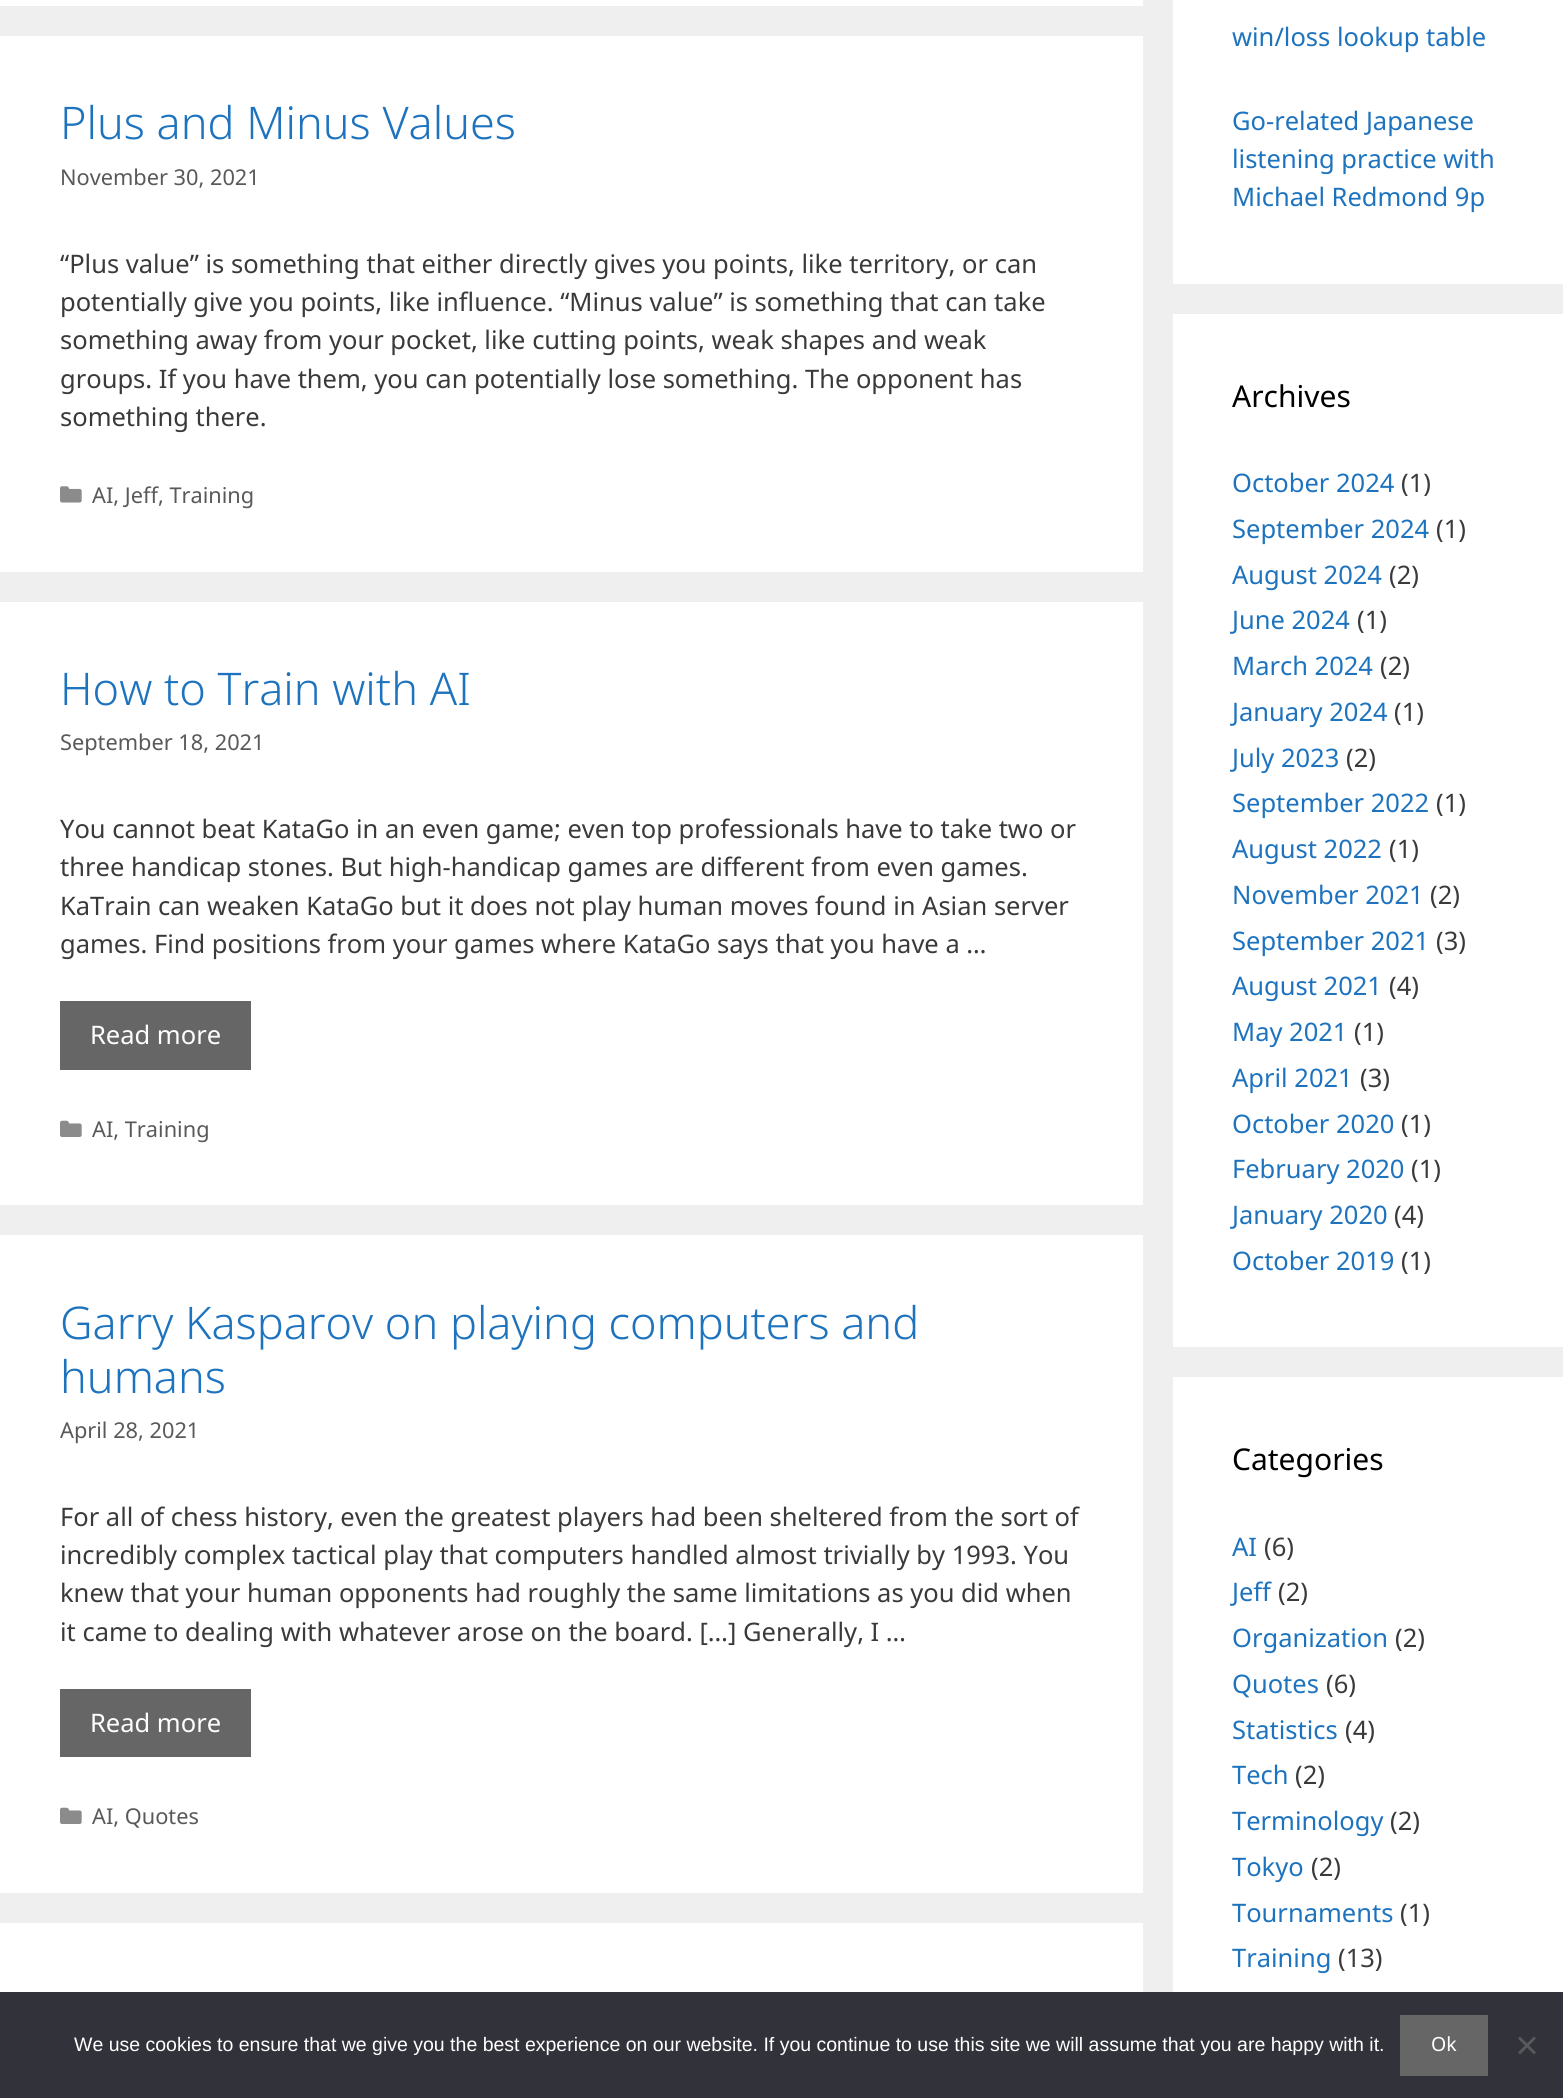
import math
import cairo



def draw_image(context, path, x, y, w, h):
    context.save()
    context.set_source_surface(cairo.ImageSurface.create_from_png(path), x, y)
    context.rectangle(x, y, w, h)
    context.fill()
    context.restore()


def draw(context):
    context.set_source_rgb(239 / 255, 239 / 255, 239 / 255)
    context.paint()
    context.set_source_rgb(1, 1, 1)
    context.rectangle(0, 0, 1143, 6)
    context.fill()
    context.rectangle(0, 36, 1143, 536)
    context.fill()
    draw_image(context, "images/1.png", 60, 486, 22, 17)
    context.rectangle(0, 602, 1143, 603)
    context.fill()
    context.set_source_rgb(102 / 255, 102 / 255, 102 / 255)
    context.rectangle(60, 1001, 191, 69)
    context.fill()
    draw_image(context, "images/2.png", 60, 1120, 22, 17)
    context.set_source_rgb(1, 1, 1)
    context.rectangle(0, 1235, 1143, 658)
    context.fill()
    context.set_source_rgb(102 / 255, 102 / 255, 102 / 255)
    context.rectangle(60, 1689, 191, 68)
    context.fill()
    draw_image(context, "images/2.png", 60, 1807, 22, 17)
    context.set_source_rgb(1, 1, 1)
    context.rectangle(0, 1923, 1143, 69)
    context.fill()
    context.rectangle(1173, 0, 390, 284)
    context.fill()
    context.rectangle(1173, 314, 390, 1033)
    context.fill()
    context.rectangle(1173, 1377, 390, 615)
    context.fill()
    context.set_source_rgb(50 / 255, 50 / 255, 58 / 255)
    context.rectangle(0, 1992, 1563, 106)
    context.fill()
    context.set_source_rgb(102 / 255, 102 / 255, 102 / 255)
    context.rectangle(1400, 2015, 88, 61)
    context.fill()
    context.set_source_rgb(89 / 255, 89 / 255, 93 / 255)
    context.new_path()
    context.move_to(1534, 2036.5)
    context.line_to(1536, 2038.5)
    context.line_to(1520, 2054.5)
    context.line_to(1518, 2052.5)
    context.close_path()
    context.fill()
    context.new_path()
    context.move_to(1518, 2038.5)
    context.line_to(1520, 2036.5)
    context.line_to(1536, 2052.5)
    context.line_to(1534, 2054.5)
    context.close_path()
    context.fill()
    context.select_font_face("Noto Sans Light")
    context.set_font_size(45)
    context.set_source_rgb(30 / 255, 115 / 255, 190 / 255)
    context.move_to(60, 139)
    context.show_text("Plus and Minus Values")
    context.select_font_face("Noto Sans")
    context.set_font_size(21.75)
    context.set_source_rgb(89 / 255, 89 / 255, 89 / 255)
    context.move_to(60, 185)
    context.show_text("November 30, 2021")
    context.set_font_size(25.5)
    context.set_source_rgb(58 / 255, 58 / 255, 58 / 255)
    context.move_to(60, 273)
    context.show_text("“Plus value” is something that either directly gives you points, like territory, or can")
    context.move_to(60, 311)
    context.show_text("potentially give you points, like influence. “Minus value” is something that can take")
    context.move_to(60, 349)
    context.show_text("something away from your pocket, like cutting points, weak shapes and weak")
    context.move_to(60, 388)
    context.show_text("groups. If you have them, you can potentially lose something. The opponent has")
    context.move_to(60, 426)
    context.show_text("something there.")
    context.set_font_size(21.75)
    context.set_source_rgb(89 / 255, 89 / 255, 89 / 255)
    context.move_to(92, 503)
    context.show_text("AI, Jeff, Training")
    context.select_font_face("Noto Sans Light")
    context.set_font_size(45)
    context.set_source_rgb(30 / 255, 115 / 255, 190 / 255)
    context.move_to(60, 705)
    context.show_text("How to Train with AI")
    context.select_font_face("Noto Sans")
    context.set_font_size(21.75)
    context.set_source_rgb(89 / 255, 89 / 255, 89 / 255)
    context.move_to(60, 750)
    context.show_text("September 18, 2021")
    context.set_font_size(25.5)
    context.set_source_rgb(58 / 255, 58 / 255, 58 / 255)
    context.move_to(60, 838)
    context.show_text("You cannot beat KataGo in an even game; even top professionals have to take two or")
    context.move_to(60, 876)
    context.show_text("three handicap stones. But high-handicap games are different from even games.")
    context.move_to(60, 915)
    context.show_text("KaTrain can weaken KataGo but it does not play human moves found in Asian server")
    context.move_to(60, 953)
    context.show_text("games. Find positions from your games where KataGo says that you have a …")
    context.set_source_rgb(1, 1, 1)
    context.move_to(90, 1044)
    context.show_text("Read more")
    context.set_font_size(21.75)
    context.set_source_rgb(89 / 255, 89 / 255, 89 / 255)
    context.move_to(92, 1137)
    context.show_text("AI, Training")
    context.select_font_face("Noto Sans Light")
    context.set_font_size(45)
    context.set_source_rgb(30 / 255, 115 / 255, 190 / 255)
    context.move_to(60, 1339)
    context.show_text("Garry Kasparov on playing computers and")
    context.move_to(60, 1393)
    context.show_text("humans")
    context.select_font_face("Noto Sans")
    context.set_font_size(21.75)
    context.set_source_rgb(89 / 255, 89 / 255, 89 / 255)
    context.move_to(60, 1438)
    context.show_text("April 28, 2021")
    context.set_font_size(25.5)
    context.set_source_rgb(58 / 255, 58 / 255, 58 / 255)
    context.move_to(60, 1526)
    context.show_text("For all of chess history, even the greatest players had been sheltered from the sort of")
    context.move_to(60, 1564)
    context.show_text("incredibly complex tactical play that computers handled almost trivially by 1993. You")
    context.move_to(60, 1602)
    context.show_text("knew that your human opponents had roughly the same limitations as you did when")
    context.move_to(60, 1641)
    context.show_text("it came to dealing with whatever arose on the board. […] Generally, I …")
    context.set_source_rgb(1, 1, 1)
    context.move_to(90, 1732)
    context.show_text("Read more")
    context.set_font_size(21.75)
    context.set_source_rgb(89 / 255, 89 / 255, 89 / 255)
    context.move_to(92, 1824)
    context.show_text("AI, Quotes")
    context.set_font_size(25.5)
    context.set_source_rgb(30 / 255, 115 / 255, 190 / 255)
    context.move_to(1232, 46)
    context.show_text("win/loss lookup table")
    context.move_to(1232, 130)
    context.show_text("Go-related Japanese")
    context.move_to(1232, 168)
    context.show_text("listening practice with")
    context.move_to(1232, 206)
    context.show_text("Michael Redmond 9p")
    context.set_font_size(30)
    context.set_source_rgb(0, 0, 0)
    context.move_to(1232, 407)
    context.show_text("Archives")
    context.set_font_size(25.5)
    context.set_source_rgb(30 / 255, 115 / 255, 190 / 255)
    context.move_to(1232, 492)
    context.show_text("October 2024")
    context.set_source_rgb(58 / 255, 58 / 255, 58 / 255)
    context.move_to(1401, 492)
    context.show_text("(1)")
    context.set_source_rgb(30 / 255, 115 / 255, 190 / 255)
    context.move_to(1232, 538)
    context.show_text("September 2024")
    context.set_source_rgb(58 / 255, 58 / 255, 58 / 255)
    context.move_to(1436, 538)
    context.show_text("(1)")
    context.set_source_rgb(30 / 255, 115 / 255, 190 / 255)
    context.move_to(1232, 584)
    context.show_text("August 2024")
    context.set_source_rgb(58 / 255, 58 / 255, 58 / 255)
    context.move_to(1389, 584)
    context.show_text("(2)")
    context.set_source_rgb(30 / 255, 115 / 255, 190 / 255)
    context.move_to(1232, 629)
    context.show_text("June 2024")
    context.set_source_rgb(58 / 255, 58 / 255, 58 / 255)
    context.move_to(1357, 629)
    context.show_text("(1)")
    context.set_source_rgb(30 / 255, 115 / 255, 190 / 255)
    context.move_to(1232, 675)
    context.show_text("March 2024")
    context.set_source_rgb(58 / 255, 58 / 255, 58 / 255)
    context.move_to(1380, 675)
    context.show_text("(2)")
    context.set_source_rgb(30 / 255, 115 / 255, 190 / 255)
    context.move_to(1232, 721)
    context.show_text("January 2024")
    context.set_source_rgb(58 / 255, 58 / 255, 58 / 255)
    context.move_to(1394, 721)
    context.show_text("(1)")
    context.set_source_rgb(30 / 255, 115 / 255, 190 / 255)
    context.move_to(1232, 767)
    context.show_text("July 2023")
    context.set_source_rgb(58 / 255, 58 / 255, 58 / 255)
    context.move_to(1346, 767)
    context.show_text("(2)")
    context.set_source_rgb(30 / 255, 115 / 255, 190 / 255)
    context.move_to(1232, 812)
    context.show_text("September 2022")
    context.set_source_rgb(58 / 255, 58 / 255, 58 / 255)
    context.move_to(1436, 812)
    context.show_text("(1)")
    context.set_source_rgb(30 / 255, 115 / 255, 190 / 255)
    context.move_to(1232, 858)
    context.show_text("August 2022")
    context.set_source_rgb(58 / 255, 58 / 255, 58 / 255)
    context.move_to(1389, 858)
    context.show_text("(1)")
    context.set_source_rgb(30 / 255, 115 / 255, 190 / 255)
    context.move_to(1232, 904)
    context.show_text("November 2021")
    context.set_source_rgb(58 / 255, 58 / 255, 58 / 255)
    context.move_to(1430, 904)
    context.show_text("(2)")
    context.set_source_rgb(30 / 255, 115 / 255, 190 / 255)
    context.move_to(1232, 950)
    context.show_text("September 2021")
    context.set_source_rgb(58 / 255, 58 / 255, 58 / 255)
    context.move_to(1436, 950)
    context.show_text("(3)")
    context.set_source_rgb(30 / 255, 115 / 255, 190 / 255)
    context.move_to(1232, 995)
    context.show_text("August 2021")
    context.set_source_rgb(58 / 255, 58 / 255, 58 / 255)
    context.move_to(1389, 995)
    context.show_text("(4)")
    context.set_source_rgb(30 / 255, 115 / 255, 190 / 255)
    context.move_to(1232, 1041)
    context.show_text("May 2021")
    context.set_source_rgb(58 / 255, 58 / 255, 58 / 255)
    context.move_to(1354, 1041)
    context.show_text("(1)")
    context.set_source_rgb(30 / 255, 115 / 255, 190 / 255)
    context.move_to(1232, 1087)
    context.show_text("April 2021")
    context.set_source_rgb(58 / 255, 58 / 255, 58 / 255)
    context.move_to(1360, 1087)
    context.show_text("(3)")
    context.set_source_rgb(30 / 255, 115 / 255, 190 / 255)
    context.move_to(1232, 1133)
    context.show_text("October 2020")
    context.set_source_rgb(58 / 255, 58 / 255, 58 / 255)
    context.move_to(1401, 1133)
    context.show_text("(1)")
    context.set_source_rgb(30 / 255, 115 / 255, 190 / 255)
    context.move_to(1232, 1178)
    context.show_text("February 2020")
    context.set_source_rgb(58 / 255, 58 / 255, 58 / 255)
    context.move_to(1411, 1178)
    context.show_text("(1)")
    context.set_source_rgb(30 / 255, 115 / 255, 190 / 255)
    context.move_to(1232, 1224)
    context.show_text("January 2020")
    context.set_source_rgb(58 / 255, 58 / 255, 58 / 255)
    context.move_to(1394, 1224)
    context.show_text("(4)")
    context.set_source_rgb(30 / 255, 115 / 255, 190 / 255)
    context.move_to(1232, 1270)
    context.show_text("October 2019")
    context.set_source_rgb(58 / 255, 58 / 255, 58 / 255)
    context.move_to(1401, 1270)
    context.show_text("(1)")
    context.set_font_size(30)
    context.set_source_rgb(0, 0, 0)
    context.move_to(1232, 1470)
    context.show_text("Categories")
    context.set_font_size(25.5)
    context.set_source_rgb(30 / 255, 115 / 255, 190 / 255)
    context.move_to(1232, 1556)
    context.show_text("AI")
    context.set_source_rgb(58 / 255, 58 / 255, 58 / 255)
    context.move_to(1264, 1556)
    context.show_text("(6)")
    context.set_source_rgb(30 / 255, 115 / 255, 190 / 255)
    context.move_to(1232, 1601)
    context.show_text("Jeff")
    context.set_source_rgb(58 / 255, 58 / 255, 58 / 255)
    context.move_to(1278, 1601)
    context.show_text("(2)")
    context.set_source_rgb(30 / 255, 115 / 255, 190 / 255)
    context.move_to(1232, 1647)
    context.show_text("Organization")
    context.set_source_rgb(58 / 255, 58 / 255, 58 / 255)
    context.move_to(1395, 1647)
    context.show_text("(2)")
    context.set_source_rgb(30 / 255, 115 / 255, 190 / 255)
    context.move_to(1232, 1693)
    context.show_text("Quotes")
    context.set_source_rgb(58 / 255, 58 / 255, 58 / 255)
    context.move_to(1326, 1693)
    context.show_text("(6)")
    context.set_source_rgb(30 / 255, 115 / 255, 190 / 255)
    context.move_to(1232, 1739)
    context.show_text("Statistics")
    context.set_source_rgb(58 / 255, 58 / 255, 58 / 255)
    context.move_to(1345, 1739)
    context.show_text("(4)")
    context.set_source_rgb(30 / 255, 115 / 255, 190 / 255)
    context.move_to(1232, 1784)
    context.show_text("Tech")
    context.set_source_rgb(58 / 255, 58 / 255, 58 / 255)
    context.move_to(1295, 1784)
    context.show_text("(2)")
    context.set_source_rgb(30 / 255, 115 / 255, 190 / 255)
    context.move_to(1232, 1830)
    context.show_text("Terminology")
    context.set_source_rgb(58 / 255, 58 / 255, 58 / 255)
    context.move_to(1390, 1830)
    context.show_text("(2)")
    context.set_source_rgb(30 / 255, 115 / 255, 190 / 255)
    context.move_to(1232, 1876)
    context.show_text("Tokyo")
    context.set_source_rgb(58 / 255, 58 / 255, 58 / 255)
    context.move_to(1311, 1876)
    context.show_text("(2)")
    context.set_source_rgb(30 / 255, 115 / 255, 190 / 255)
    context.move_to(1232, 1922)
    context.show_text("Tournaments")
    context.set_source_rgb(58 / 255, 58 / 255, 58 / 255)
    context.move_to(1400, 1922)
    context.show_text("(1)")
    context.set_source_rgb(30 / 255, 115 / 255, 190 / 255)
    context.move_to(1232, 1967)
    context.show_text("Training")
    context.set_source_rgb(58 / 255, 58 / 255, 58 / 255)
    context.move_to(1338, 1967)
    context.show_text("(13)")
    context.select_font_face("Liberation Sans")
    context.set_font_size(19.5)
    context.set_source_rgb(1, 1, 1)
    context.move_to(74, 2051)
    context.show_text("We use cookies to ensure that we give you the best experience on our website. If you continue to use this site we will assume that you are happy with it.")
    context.select_font_face("Noto Sans")
    context.move_to(1431, 2051)
    context.show_text("Ok")


surface = cairo.ImageSurface(cairo.Format.RGB24, 1563, 2098)
context = cairo.Context(surface)
options = cairo.FontOptions()
options.set_hint_metrics(cairo.HintMetrics.OFF)
options.set_hint_style(cairo.HintStyle.NONE)
context.set_font_options(options)
context.set_miter_limit(4)
draw(context)
surface.write_to_png("out.png")
